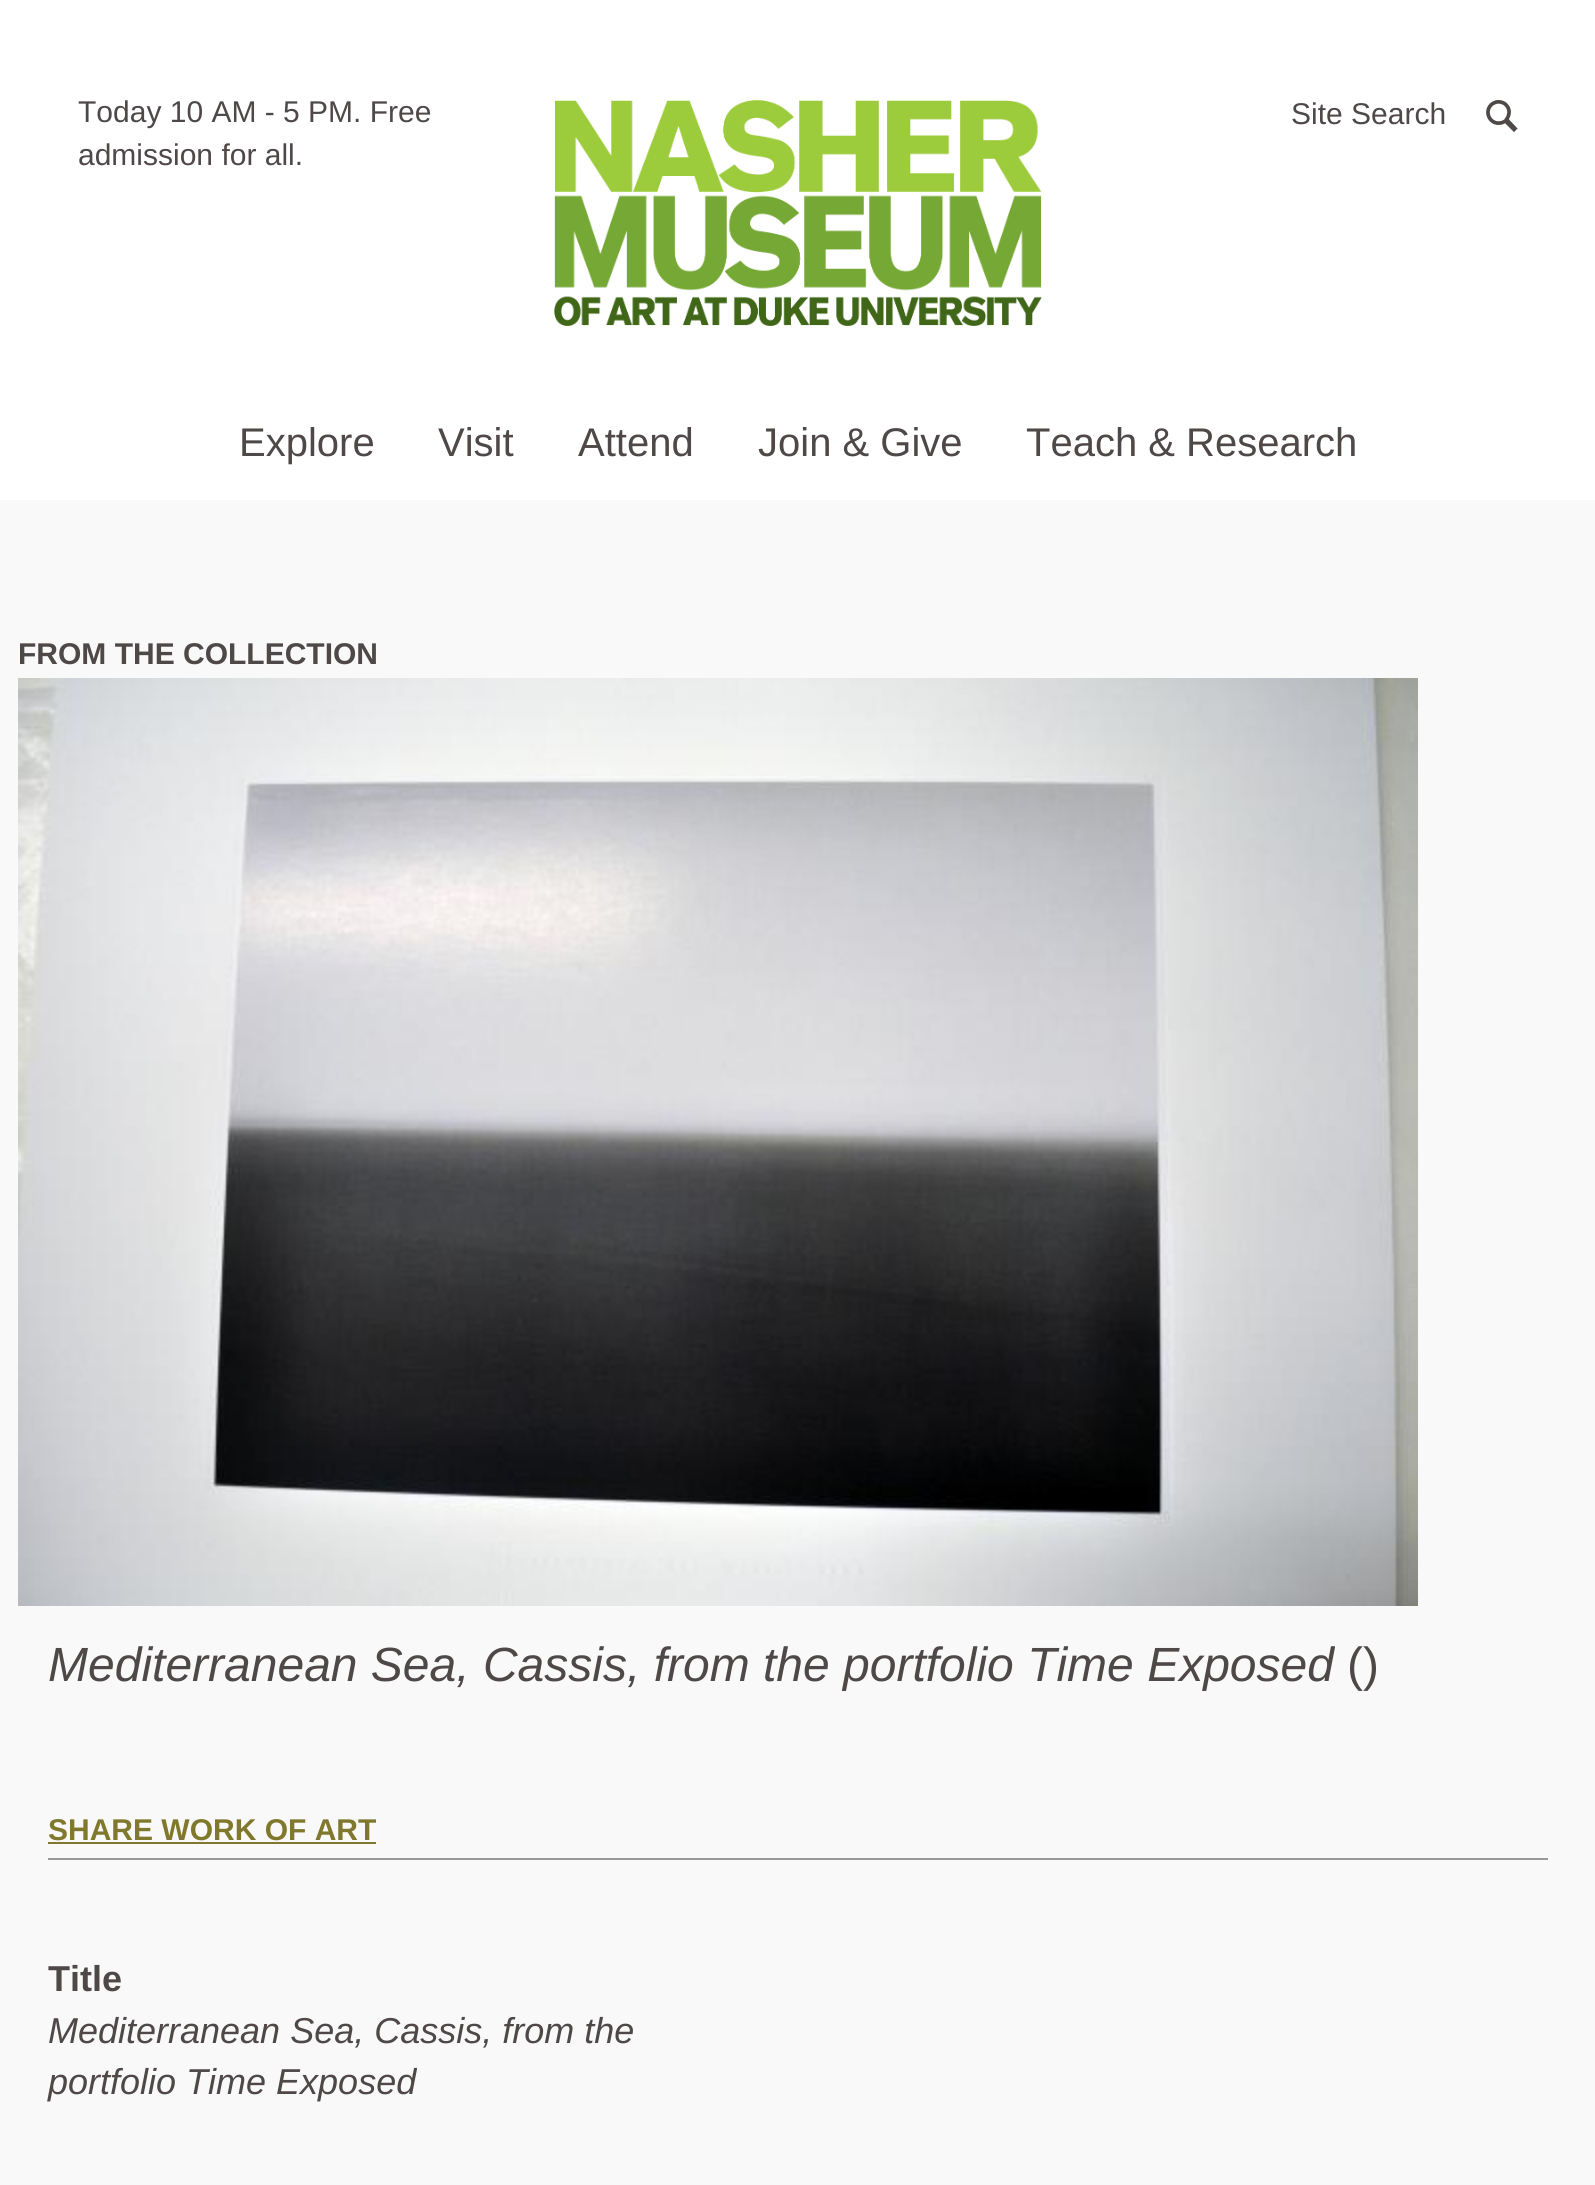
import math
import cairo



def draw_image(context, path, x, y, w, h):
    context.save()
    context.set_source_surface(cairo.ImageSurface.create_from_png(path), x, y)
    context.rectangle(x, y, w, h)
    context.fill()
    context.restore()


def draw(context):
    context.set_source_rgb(1, 1, 1)
    context.paint()
    context.new_path()
    context.move_to(1514, 129.5)
    context.line_to(1515, 128.5)
    context.line_to(1506.5, 119.5)
    context.curve_to(1510, 114.5, 1510.5, 108, 1504.5, 103.5)
    context.curve_to(1502, 102, 1499, 101.5, 1496.5, 102)
    context.curve_to(1494.5, 102.5, 1492.5, 103.5, 1491, 105)
    context.curve_to(1484, 112, 1490, 124.5, 1500, 123)
    context.curve_to(1502, 123, 1503.5, 122, 1505.5, 121)
    context.close_path()
    context.set_source_rgb(79 / 255, 72 / 255, 72 / 255)
    context.set_line_width(3.7)
    context.stroke()
    draw_image(context, "images/1.png", 554, 100, 488, 226)
    context.set_source_rgb(249 / 255, 249 / 255, 249 / 255)
    context.rectangle(0, 500, 1595, 1685)
    context.fill()
    draw_image(context, "images/2.png", 18, 678, 1400, 928)
    context.set_source_rgb(128 / 255, 120 / 255, 44 / 255)
    context.rectangle(48, 1842, 328, 2)
    context.fill()
    context.set_source_rgb(153 / 255, 153 / 255, 153 / 255)
    context.rectangle(48, 1858, 1500, 2)
    context.fill()
    context.select_font_face("Liberation Sans")
    context.set_font_size(30)
    context.set_source_rgb(79 / 255, 72 / 255, 72 / 255)
    context.move_to(78, 122)
    context.show_text("Today 10 AM - 5 PM. Free")
    context.move_to(78, 165)
    context.show_text("admission for all.")
    context.move_to(1291, 124)
    context.show_text("Site Search")
    context.set_font_size(40)
    context.move_to(239, 456)
    context.show_text("Explore")
    context.move_to(438, 456)
    context.show_text("Visit")
    context.move_to(578, 456)
    context.show_text("Attend")
    context.move_to(758, 456)
    context.show_text("Join & Give")
    context.move_to(1026, 456)
    context.show_text("Teach & Research")
    context.select_font_face("Liberation Sans", cairo.FontSlant.NORMAL, cairo.FontWeight.BOLD)
    context.set_font_size(30)
    context.move_to(18, 664)
    context.show_text("FROM THE COLLECTION")
    context.select_font_face("Liberation Sans", cairo.FontSlant.ITALIC)
    context.set_font_size(48)
    context.move_to(48, 1681)
    context.show_text("Mediterranean Sea, Cassis, from the portfolio Time Exposed")
    context.select_font_face("Liberation Sans")
    context.move_to(1347, 1681)
    context.show_text("()")
    context.select_font_face("Liberation Sans", cairo.FontSlant.NORMAL, cairo.FontWeight.BOLD)
    context.set_font_size(30)
    context.set_source_rgb(128 / 255, 120 / 255, 44 / 255)
    context.move_to(48, 1840)
    context.show_text("SHARE WORK OF ART")
    context.set_font_size(36)
    context.set_source_rgb(79 / 255, 72 / 255, 72 / 255)
    context.move_to(48, 1991)
    context.show_text("Title")
    context.select_font_face("Liberation Sans", cairo.FontSlant.ITALIC)
    context.move_to(48, 2043)
    context.show_text("Mediterranean Sea, Cassis, from the")
    context.move_to(48, 2094)
    context.show_text("portfolio Time Exposed")


surface = cairo.ImageSurface(cairo.Format.RGB24, 1595, 2185)
context = cairo.Context(surface)
options = cairo.FontOptions()
options.set_hint_metrics(cairo.HintMetrics.OFF)
options.set_hint_style(cairo.HintStyle.NONE)
context.set_font_options(options)
context.set_miter_limit(4)
draw(context)
surface.write_to_png("out.png")
